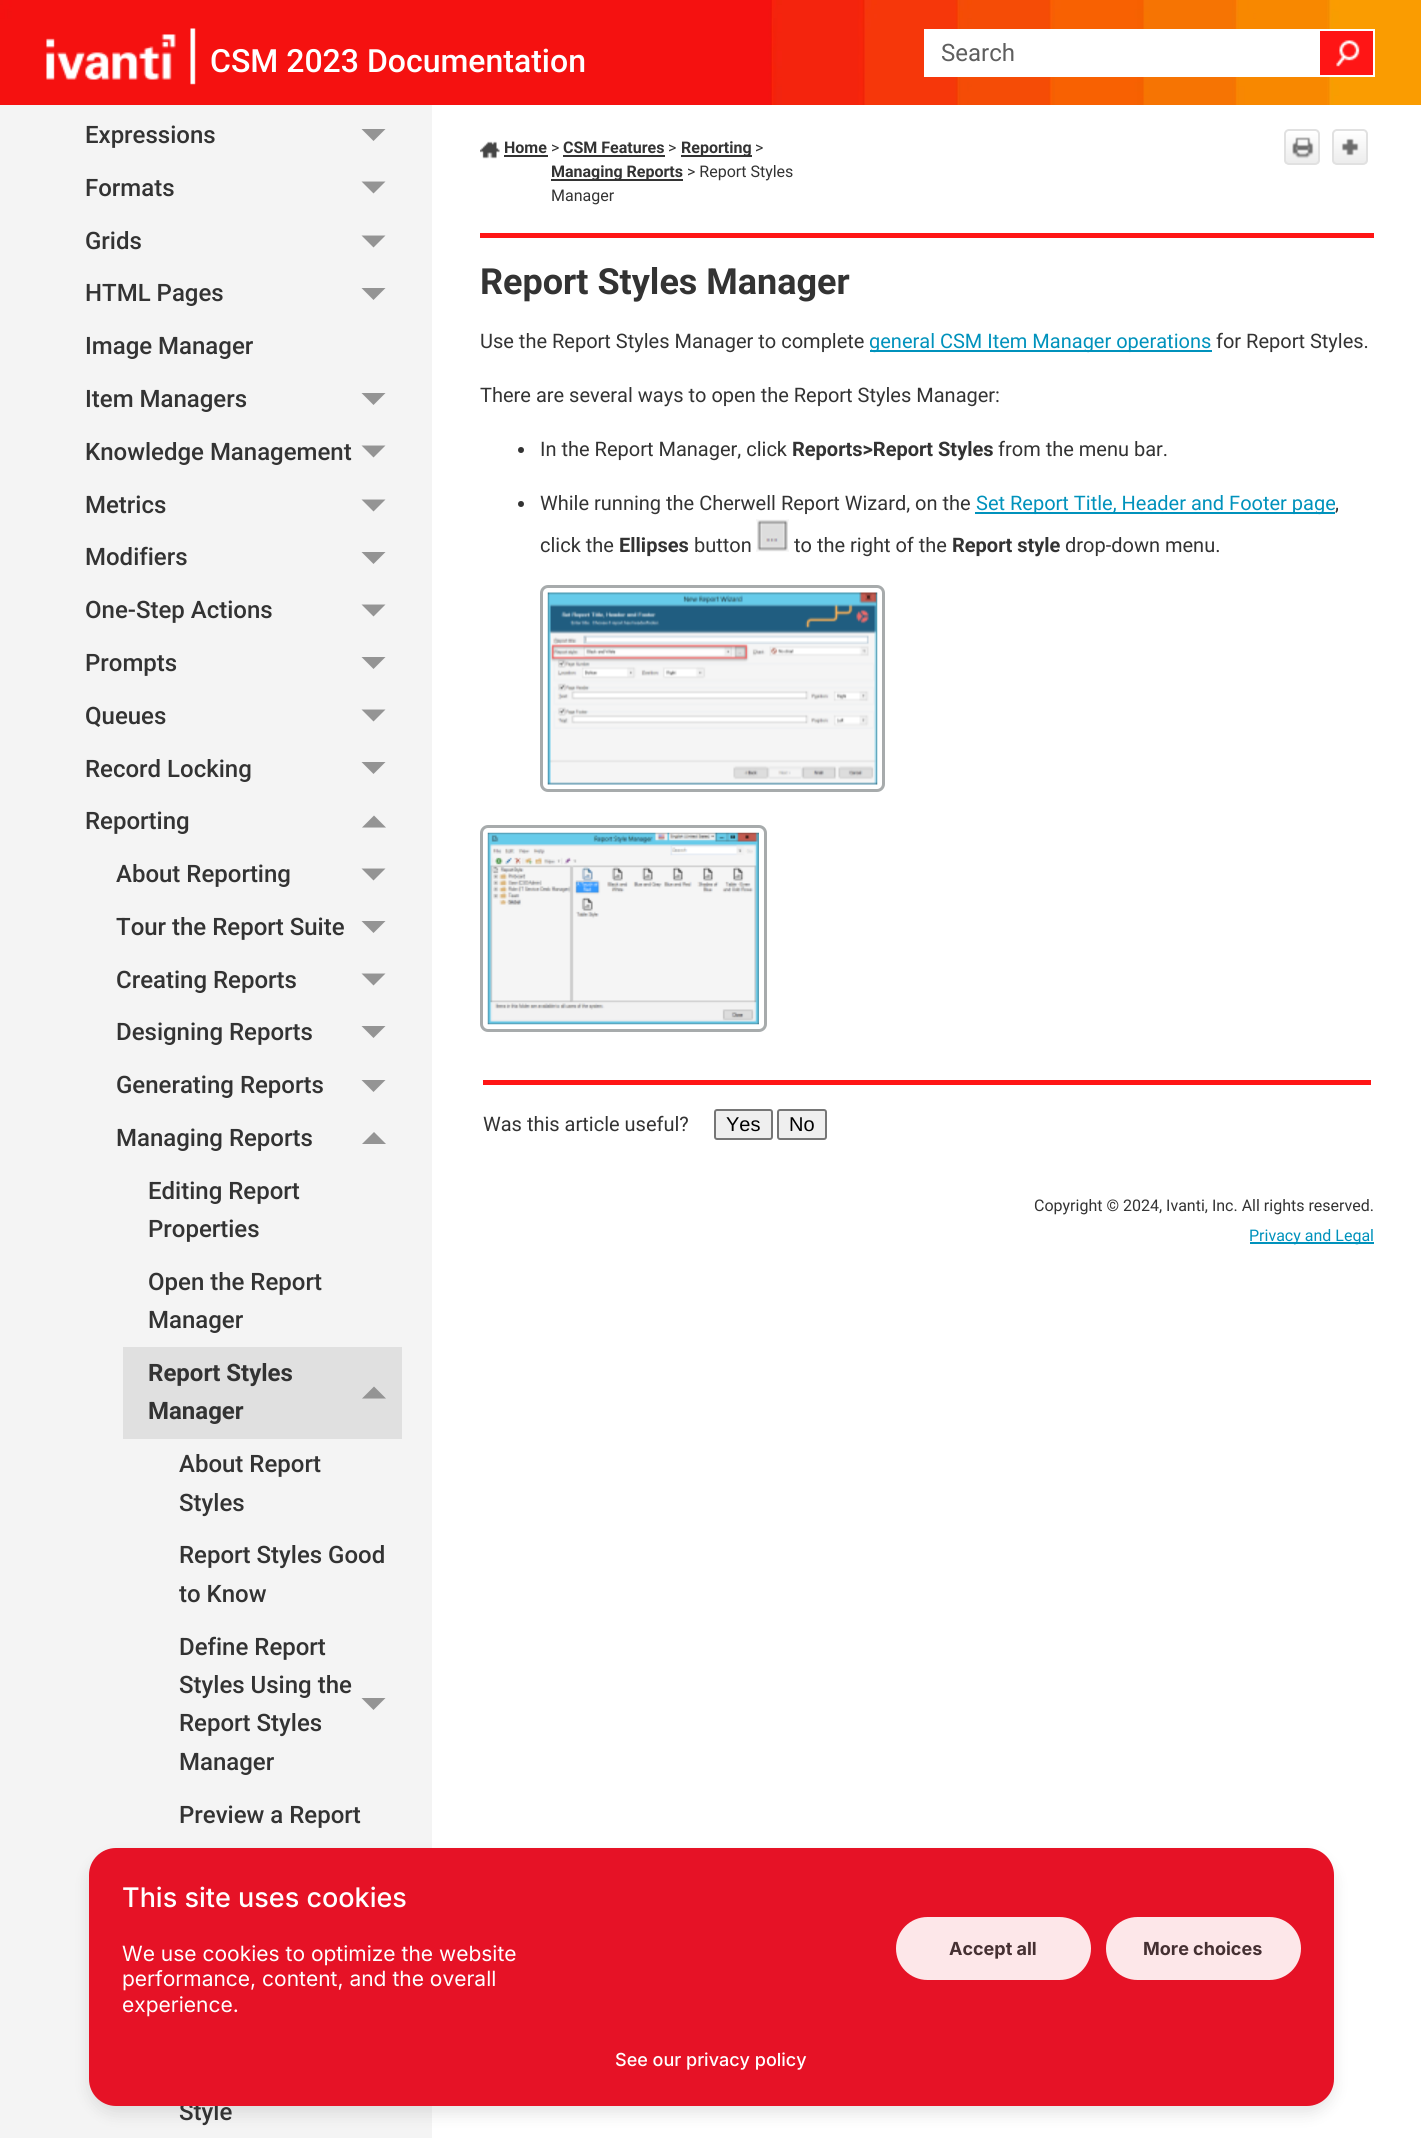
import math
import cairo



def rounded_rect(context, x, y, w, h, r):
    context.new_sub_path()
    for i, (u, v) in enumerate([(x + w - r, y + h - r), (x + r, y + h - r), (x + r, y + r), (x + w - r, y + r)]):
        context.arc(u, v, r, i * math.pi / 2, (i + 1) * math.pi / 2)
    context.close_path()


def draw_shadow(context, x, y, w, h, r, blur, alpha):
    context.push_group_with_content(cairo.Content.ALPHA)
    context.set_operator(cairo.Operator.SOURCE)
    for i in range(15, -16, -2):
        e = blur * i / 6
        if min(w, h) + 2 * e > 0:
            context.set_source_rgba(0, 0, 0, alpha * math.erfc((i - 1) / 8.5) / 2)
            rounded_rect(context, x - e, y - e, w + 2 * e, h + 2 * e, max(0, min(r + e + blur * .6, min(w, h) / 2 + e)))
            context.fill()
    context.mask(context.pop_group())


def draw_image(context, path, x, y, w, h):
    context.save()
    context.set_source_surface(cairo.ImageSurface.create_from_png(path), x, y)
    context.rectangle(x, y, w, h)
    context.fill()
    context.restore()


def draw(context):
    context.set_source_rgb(244 / 255, 244 / 255, 244 / 255)
    context.paint()
    draw_image(context, "images/1.png", 0, 0, 1421, 105)
    draw_image(context, "images/2.png", 46, 28, 150, 57)
    context.set_source_rgb(1, 1, 1)
    context.rectangle(924, 29, 396, 48)
    context.fill()
    context.set_source_rgb(1, 21 / 255, 21 / 255)
    context.rectangle(1320, 31, 53, 44)
    context.fill()
    draw_image(context, "images/3.png", 1336, 40, 24, 27)
    context.set_source_rgb(1, 1, 1)
    context.rectangle(1320, 29, 54, 2)
    context.fill()
    context.rectangle(1373, 29, 2, 48)
    context.fill()
    context.rectangle(1320, 75, 54, 2)
    context.fill()
    context.rectangle(432, 105, 989, 2033)
    context.fill()
    context.set_source_rgb(1, 21 / 255, 21 / 255)
    context.rectangle(480, 233, 894, 5)
    context.fill()
    draw_image(context, "images/4.png", 480, 141, 20, 18)
    context.set_source_rgb(51 / 255, 51 / 255, 51 / 255)
    context.rectangle(504, 155, 44, 2)
    context.fill()
    context.rectangle(563, 155, 102, 2)
    context.fill()
    context.rectangle(681, 155, 71, 2)
    context.fill()
    context.rectangle(551, 179, 132, 2)
    context.fill()
    context.save()
    rounded_rect(context, 1284, 129, 36, 36, 5)
    context.clip()
    gradient = cairo.LinearGradient(1302, 131, 1302, 164)
    gradient.add_color_stop_rgba(0, 1, 1, 1, 1)
    gradient.add_color_stop_rgba(1, 236 / 255, 236 / 255, 236 / 255, 1)
    context.set_source(gradient)
    context.rectangle(1284, 131, 36, 33)
    context.fill()
    context.restore()
    rounded_rect(context, 1285, 130, 34, 34, 4)
    context.set_source_rgb(225 / 255, 225 / 255, 225 / 255)
    context.stroke()
    draw_image(context, "images/5.png", 1292, 137, 22, 22)
    context.save()
    rounded_rect(context, 1332, 129, 36, 36, 5)
    context.clip()
    gradient = cairo.LinearGradient(1350, 131, 1350, 164)
    gradient.add_color_stop_rgba(0, 1, 1, 1, 1)
    gradient.add_color_stop_rgba(1, 236 / 255, 236 / 255, 236 / 255, 1)
    context.set_source(gradient)
    context.rectangle(1332, 131, 36, 33)
    context.fill()
    context.restore()
    rounded_rect(context, 1333, 130, 34, 34, 4)
    context.stroke()
    draw_image(context, "images/6.png", 1341, 138, 18, 18)
    context.set_source_rgb(0, 146 / 255, 188 / 255)
    context.rectangle(870, 350, 342, 2)
    context.fill()
    context.set_source_rgb(51 / 255, 51 / 255, 51 / 255)
    context.arc(521, 450, 3, 0, 2 * math.pi)
    context.fill()
    context.arc(521, 504, 3, 0, 2 * math.pi)
    context.fill()
    context.set_source_rgb(0, 146 / 255, 188 / 255)
    context.rectangle(975, 512, 360, 2)
    context.fill()
    draw_image(context, "images/7.png", 756, 519, 33, 33)
    rounded_rect(context, 541.5, 586.5, 342, 204, 6.5)
    context.set_source_rgb(167 / 255, 171 / 255, 172 / 255)
    context.set_line_width(3)
    context.stroke()
    draw_image(context, "images/8.png", 547, 592, 331, 193)
    rounded_rect(context, 481.5, 826.5, 284, 204, 6.5)
    context.stroke()
    draw_image(context, "images/9.png", 487, 832, 272, 193)
    context.set_source_rgb(1, 21 / 255, 21 / 255)
    context.rectangle(483, 1080, 888, 5)
    context.fill()
    context.set_source_rgb(239 / 255, 239 / 255, 239 / 255)
    rounded_rect(context, 715, 1110, 57, 29, 2)
    context.fill_preserve()
    context.set_source_rgb(118 / 255, 118 / 255, 118 / 255)
    context.set_line_width(2)
    context.stroke()
    context.set_source_rgb(239 / 255, 239 / 255, 239 / 255)
    rounded_rect(context, 778, 1110, 48, 29, 2)
    context.fill_preserve()
    context.set_source_rgb(118 / 255, 118 / 255, 118 / 255)
    context.stroke()
    context.set_source_rgb(0, 146 / 255, 188 / 255)
    context.rectangle(1250, 1242, 124, 2)
    context.fill()
    context.set_source_rgb(148 / 255, 148 / 255, 148 / 255)
    context.new_path()
    context.move_to(361.5, 129)
    context.line_to(385.5, 129)
    context.line_to(373.5, 141)
    context.close_path()
    context.fill()
    context.new_path()
    context.move_to(361.5, 181.5)
    context.line_to(385.5, 181.5)
    context.line_to(373.5, 193.5)
    context.close_path()
    context.fill()
    context.new_path()
    context.move_to(361.5, 235.5)
    context.line_to(385.5, 235.5)
    context.line_to(373.5, 247.5)
    context.close_path()
    context.fill()
    context.new_path()
    context.move_to(361.5, 288)
    context.line_to(385.5, 288)
    context.line_to(373.5, 300)
    context.close_path()
    context.fill()
    context.new_path()
    context.move_to(361.5, 393)
    context.line_to(385.5, 393)
    context.line_to(373.5, 405)
    context.close_path()
    context.fill()
    context.new_path()
    context.move_to(361.5, 445.5)
    context.line_to(385.5, 445.5)
    context.line_to(373.5, 457.5)
    context.close_path()
    context.fill()
    context.new_path()
    context.move_to(361.5, 499.5)
    context.line_to(385.5, 499.5)
    context.line_to(373.5, 511.5)
    context.close_path()
    context.fill()
    context.new_path()
    context.move_to(361.5, 552)
    context.line_to(385.5, 552)
    context.line_to(373.5, 564)
    context.close_path()
    context.fill()
    context.new_path()
    context.move_to(361.5, 604.5)
    context.line_to(385.5, 604.5)
    context.line_to(373.5, 616.5)
    context.close_path()
    context.fill()
    context.new_path()
    context.move_to(361.5, 657)
    context.line_to(385.5, 657)
    context.line_to(373.5, 669)
    context.close_path()
    context.fill()
    context.new_path()
    context.move_to(361.5, 709.5)
    context.line_to(385.5, 709.5)
    context.line_to(373.5, 721.5)
    context.close_path()
    context.fill()
    context.new_path()
    context.move_to(361.5, 762)
    context.line_to(385.5, 762)
    context.line_to(373.5, 774)
    context.close_path()
    context.fill()
    context.new_path()
    context.move_to(362, 827.5)
    context.line_to(386, 827.5)
    context.line_to(374, 815.5)
    context.close_path()
    context.fill()
    context.new_path()
    context.move_to(361.5, 868.5)
    context.line_to(385.5, 868.5)
    context.line_to(373.5, 880.5)
    context.close_path()
    context.fill()
    context.new_path()
    context.move_to(361.5, 921)
    context.line_to(385.5, 921)
    context.line_to(373.5, 933)
    context.close_path()
    context.fill()
    context.new_path()
    context.move_to(361.5, 973.5)
    context.line_to(385.5, 973.5)
    context.line_to(373.5, 985.5)
    context.close_path()
    context.fill()
    context.new_path()
    context.move_to(361.5, 1026)
    context.line_to(385.5, 1026)
    context.line_to(373.5, 1038)
    context.close_path()
    context.fill()
    context.new_path()
    context.move_to(361.5, 1080)
    context.line_to(385.5, 1080)
    context.line_to(373.5, 1092)
    context.close_path()
    context.fill()
    context.new_path()
    context.move_to(362, 1144)
    context.line_to(386, 1144)
    context.line_to(374, 1132)
    context.close_path()
    context.fill()
    context.set_source_rgb(224 / 255, 224 / 255, 224 / 255)
    context.rectangle(123, 1347, 279, 92)
    context.fill()
    context.set_source_rgb(148 / 255, 148 / 255, 148 / 255)
    context.new_path()
    context.move_to(362, 1398.5)
    context.line_to(386, 1398.5)
    context.line_to(374, 1386.5)
    context.close_path()
    context.fill()
    context.new_path()
    context.move_to(361.5, 1698)
    context.line_to(385.5, 1698)
    context.line_to(373.5, 1710)
    context.close_path()
    context.fill()
    context.set_source_rgb(0, 0, 0)
    draw_shadow(context, 89, 1856, 1245, 258, 27, 7.5, 0.1)
    context.select_font_face("Roboto")
    context.set_font_size(24)
    context.set_source_rgb(95 / 255, 95 / 255, 95 / 255)
    context.move_to(941, 61)
    context.show_text("Search")
    context.select_font_face("Roboto Medium")
    context.set_font_size(32)
    context.set_source_rgb(1, 1, 1)
    context.move_to(210, 72)
    context.show_text("CSM 2023 Documentation")
    context.select_font_face("Roboto", cairo.FontSlant.NORMAL, cairo.FontWeight.BOLD)
    context.set_font_size(16)
    context.set_source_rgb(51 / 255, 51 / 255, 51 / 255)
    context.move_to(504, 153)
    context.show_text("Home")
    context.select_font_face("Roboto")
    context.move_to(551, 153)
    context.show_text(">")
    context.select_font_face("Roboto", cairo.FontSlant.NORMAL, cairo.FontWeight.BOLD)
    context.move_to(563, 153)
    context.show_text("CSM Features")
    context.select_font_face("Roboto")
    context.move_to(668, 153)
    context.show_text(">")
    context.select_font_face("Roboto", cairo.FontSlant.NORMAL, cairo.FontWeight.BOLD)
    context.move_to(681, 153)
    context.show_text("Reporting")
    context.select_font_face("Roboto")
    context.move_to(755, 153)
    context.show_text(">")
    context.select_font_face("Roboto", cairo.FontSlant.NORMAL, cairo.FontWeight.BOLD)
    context.move_to(551, 177)
    context.show_text("Managing Reports")
    context.select_font_face("Roboto")
    context.move_to(687, 177)
    context.show_text("> Report Styles")
    context.move_to(551, 201)
    context.show_text("Manager")
    context.select_font_face("Roboto", cairo.FontSlant.NORMAL, cairo.FontWeight.BOLD)
    context.set_font_size(36)
    context.move_to(480, 294)
    context.show_text("Report Styles Manager")
    context.select_font_face("Roboto")
    context.set_font_size(20)
    context.move_to(480, 348)
    context.show_text("Use the Report Styles Manager to complete")
    context.set_source_rgb(0, 146 / 255, 188 / 255)
    context.move_to(869, 348)
    context.show_text("general CSM Item Manager operations")
    context.set_source_rgb(51 / 255, 51 / 255, 51 / 255)
    context.move_to(1216, 348)
    context.show_text("for Report Styles.")
    context.move_to(480, 402)
    context.show_text("There are several ways to open the Report Styles Manager:")
    context.move_to(540, 456)
    context.show_text("In the Report Manager, click")
    context.select_font_face("Roboto", cairo.FontSlant.NORMAL, cairo.FontWeight.BOLD)
    context.move_to(792, 456)
    context.show_text("Reports>Report Styles")
    context.select_font_face("Roboto")
    context.move_to(998, 456)
    context.show_text("from the menu bar.")
    context.move_to(540, 510)
    context.show_text("While running the Cherwell Report Wizard, on the")
    context.set_source_rgb(0, 146 / 255, 188 / 255)
    context.move_to(976, 510)
    context.show_text("Set Report Title, Header and Footer page")
    context.set_source_rgb(51 / 255, 51 / 255, 51 / 255)
    context.move_to(1335, 510)
    context.show_text(",")
    context.move_to(540, 552)
    context.show_text("click the")
    context.select_font_face("Roboto", cairo.FontSlant.NORMAL, cairo.FontWeight.BOLD)
    context.move_to(619, 552)
    context.show_text("Ellipses")
    context.select_font_face("Roboto")
    context.move_to(694, 552)
    context.show_text("button")
    context.move_to(794, 552)
    context.show_text("to the right of the")
    context.select_font_face("Roboto", cairo.FontSlant.NORMAL, cairo.FontWeight.BOLD)
    context.move_to(952, 552)
    context.show_text("Report style")
    context.select_font_face("Roboto")
    context.move_to(1065, 552)
    context.show_text("drop-down menu.")
    context.move_to(483, 1131)
    context.show_text("Was this article useful?")
    context.select_font_face("Liberation Sans")
    context.set_source_rgb(0, 0, 0)
    context.move_to(726, 1131)
    context.show_text("Yes")
    context.move_to(789, 1131)
    context.show_text("No")
    context.select_font_face("Roboto")
    context.set_font_size(16)
    context.set_source_rgb(51 / 255, 51 / 255, 51 / 255)
    context.move_to(1034, 1211)
    context.show_text("Copyright © 2024, Ivanti, Inc. All rights reserved.")
    context.set_source_rgb(0, 146 / 255, 188 / 255)
    context.move_to(1249, 1241)
    context.show_text("Privacy and Legal")
    context.select_font_face("Roboto Medium")
    context.set_font_size(24)
    context.set_source_rgb(51 / 255, 51 / 255, 51 / 255)
    context.move_to(85, 143)
    context.show_text("Expressions")
    context.move_to(85, 196)
    context.show_text("Formats")
    context.move_to(85, 249)
    context.show_text("Grids")
    context.move_to(85, 301)
    context.show_text("HTML Pages")
    context.move_to(85, 354)
    context.show_text("Image Manager")
    context.move_to(85, 407)
    context.show_text("Item Managers")
    context.move_to(85, 460)
    context.show_text("Knowledge Management")
    context.move_to(85, 513)
    context.show_text("Metrics")
    context.move_to(85, 565)
    context.show_text("Modifiers")
    context.move_to(85, 618)
    context.show_text("One-Step Actions")
    context.move_to(85, 671)
    context.show_text("Prompts")
    context.move_to(85, 724)
    context.show_text("Queues")
    context.move_to(85, 777)
    context.show_text("Record Locking")
    context.move_to(85, 829)
    context.show_text("Reporting")
    context.move_to(116, 882)
    context.show_text("About Reporting")
    context.move_to(116, 935)
    context.show_text("Tour the Report Suite")
    context.move_to(116, 988)
    context.show_text("Creating Reports")
    context.move_to(116, 1040)
    context.show_text("Designing Reports")
    context.move_to(116, 1093)
    context.show_text("Generating Reports")
    context.move_to(116, 1146)
    context.show_text("Managing Reports")
    context.move_to(148, 1199)
    context.show_text("Editing Report")
    context.move_to(148, 1237)
    context.show_text("Properties")
    context.move_to(148, 1290)
    context.show_text("Open the Report")
    context.move_to(148, 1328)
    context.show_text("Manager")
    context.select_font_face("Roboto", cairo.FontSlant.NORMAL, cairo.FontWeight.BOLD)
    context.move_to(148, 1381)
    context.show_text("Report Styles")
    context.move_to(148, 1419)
    context.show_text("Manager")
    context.select_font_face("Roboto Medium")
    context.move_to(179, 1472)
    context.show_text("About Report")
    context.move_to(179, 1511)
    context.show_text("Styles")
    context.move_to(179, 1563)
    context.show_text("Report Styles Good")
    context.move_to(179, 1602)
    context.show_text("to Know")
    context.move_to(179, 1655)
    context.show_text("Define Report")
    context.move_to(179, 1693)
    context.show_text("Styles Using the")
    context.move_to(179, 1731)
    context.show_text("Report Styles")
    context.move_to(179, 1770)
    context.show_text("Manager")
    context.move_to(179, 1823)
    context.show_text("Preview a Report")
    context.move_to(179, 2120)
    context.show_text("Style")
    context.set_source_rgb(230 / 255, 18 / 255, 38 / 255)
    rounded_rect(context, 90, 1849, 1243, 256, 26)
    context.fill_preserve()
    context.stroke()
    context.select_font_face("Inter Medium")
    context.set_font_size(27)
    context.set_source_rgb(1, 1, 1)
    context.move_to(122, 1907)
    context.show_text("This site uses cookies")
    context.select_font_face("Inter")
    context.set_font_size(21)
    context.move_to(122, 1961)
    context.show_text("We use cookies to optimize the website")
    context.move_to(122, 1986)
    context.show_text("performance, content, and the overall")
    context.move_to(122, 2012)
    context.show_text("experience.")
    context.set_source_rgb(253 / 255, 231 / 255, 233 / 255)
    rounded_rect(context, 896, 1917, 195, 63, 31.5)
    context.fill()
    context.select_font_face("Inter", cairo.FontSlant.NORMAL, cairo.FontWeight.BOLD)
    context.set_font_size(18)
    context.set_source_rgb(69 / 255, 48 / 255, 50 / 255)
    context.move_to(949, 1955)
    context.show_text("Accept all")
    context.set_source_rgb(253 / 255, 231 / 255, 233 / 255)
    rounded_rect(context, 1106, 1917, 195, 63, 31.5)
    context.fill()
    context.set_source_rgb(69 / 255, 48 / 255, 50 / 255)
    context.move_to(1143, 1955)
    context.show_text("More choices")
    context.select_font_face("Inter Medium")
    context.set_source_rgb(1, 1, 1)
    context.move_to(615, 2066)
    context.show_text("See our privacy policy")


surface = cairo.ImageSurface(cairo.Format.RGB24, 1421, 2138)
context = cairo.Context(surface)
options = cairo.FontOptions()
options.set_hint_metrics(cairo.HintMetrics.OFF)
options.set_hint_style(cairo.HintStyle.NONE)
context.set_font_options(options)
context.set_miter_limit(4)
draw(context)
surface.write_to_png("out.png")
